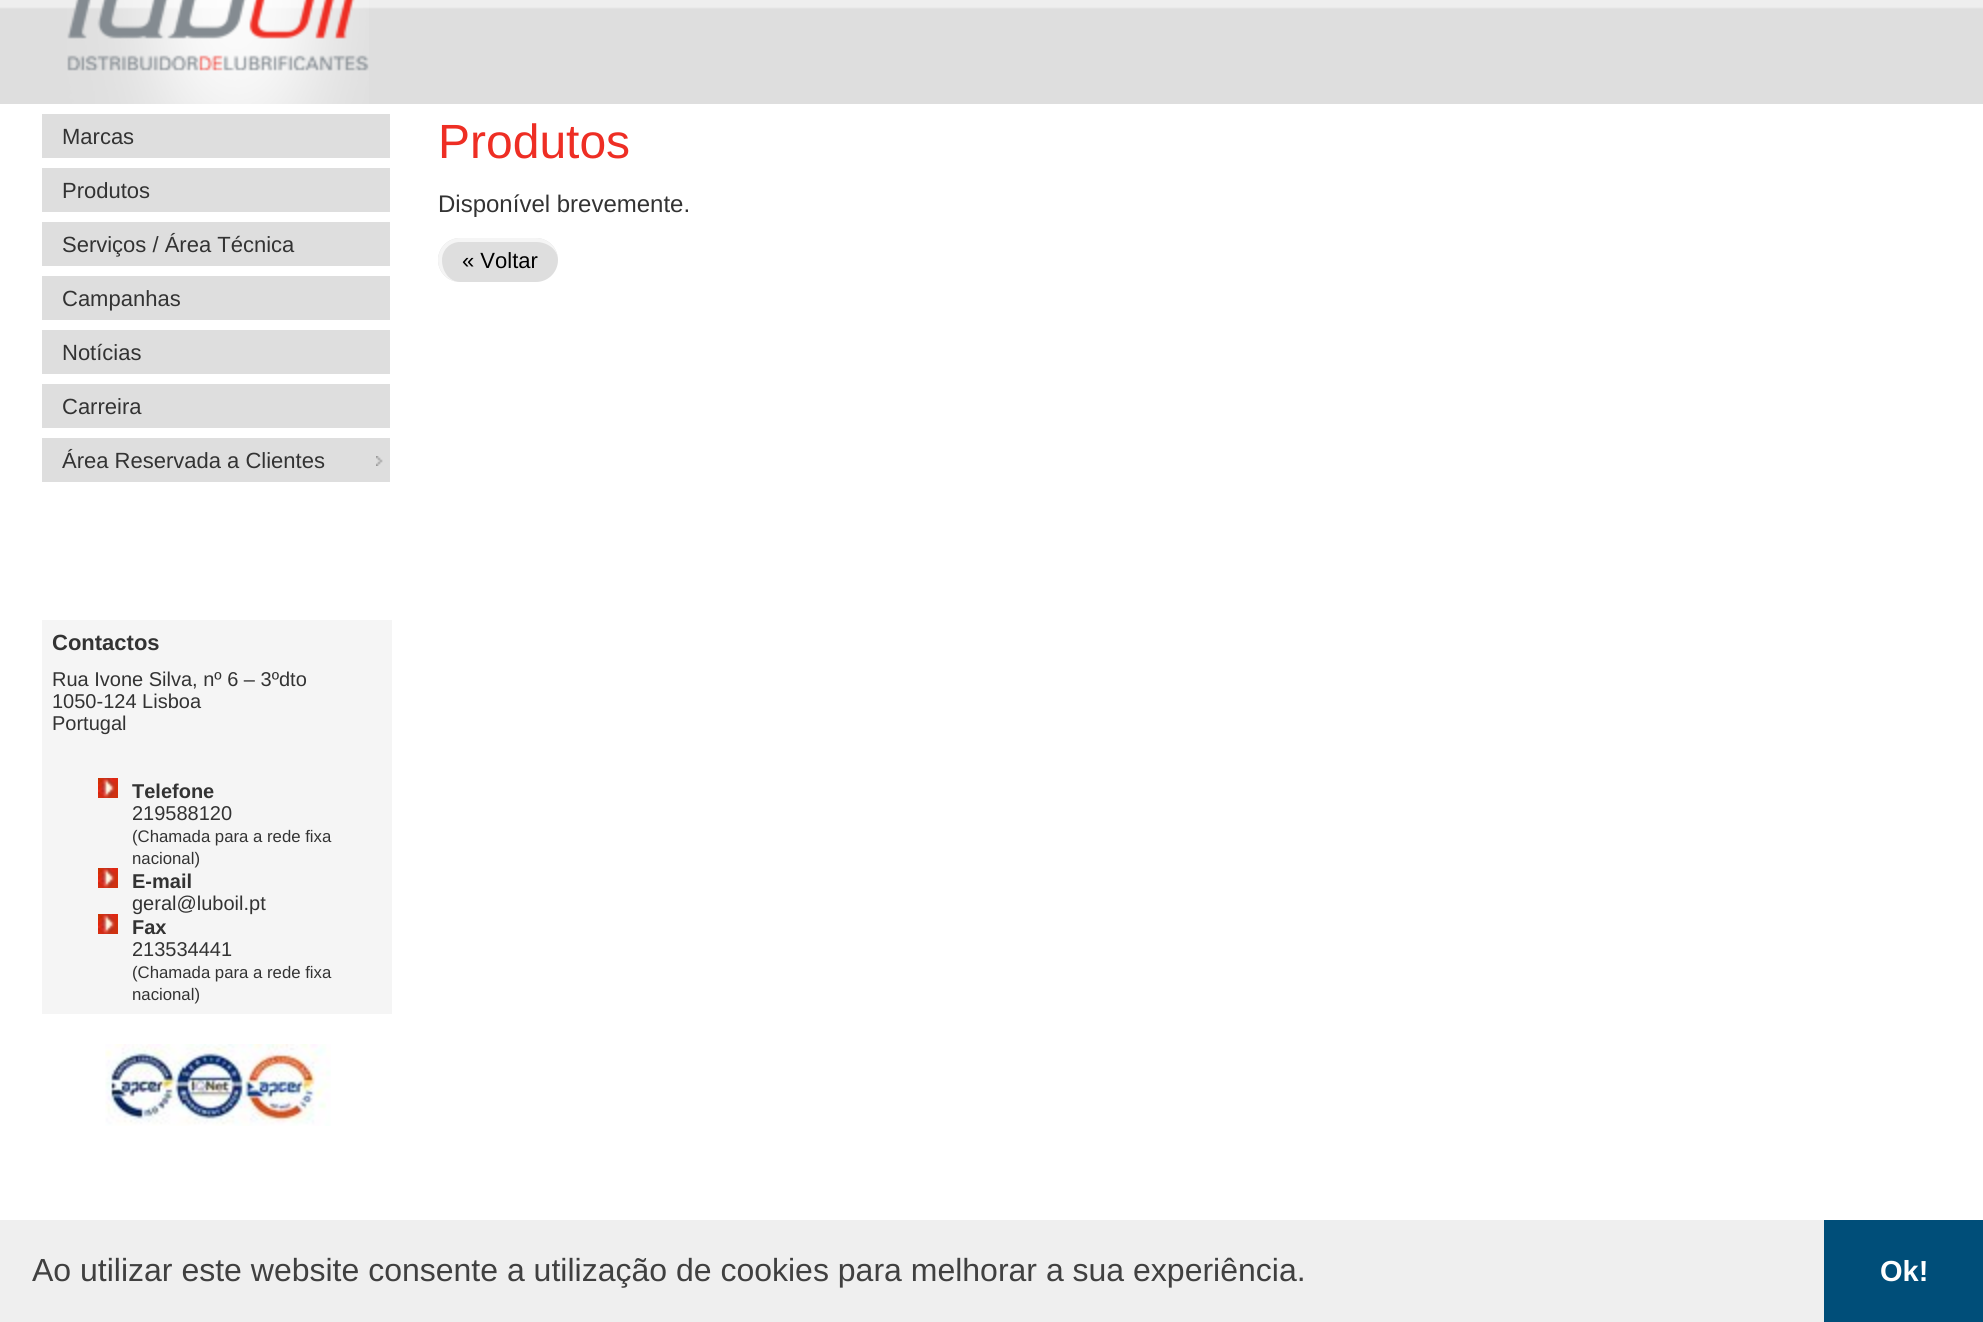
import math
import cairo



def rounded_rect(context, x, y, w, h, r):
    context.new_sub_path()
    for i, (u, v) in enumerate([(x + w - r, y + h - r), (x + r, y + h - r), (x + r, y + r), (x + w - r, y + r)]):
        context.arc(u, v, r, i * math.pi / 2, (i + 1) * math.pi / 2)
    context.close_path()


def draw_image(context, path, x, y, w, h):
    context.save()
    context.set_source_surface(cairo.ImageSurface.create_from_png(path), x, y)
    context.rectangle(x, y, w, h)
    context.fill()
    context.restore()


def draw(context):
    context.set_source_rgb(1, 1, 1)
    context.paint()
    draw_image(context, "images/1.png", 0, 0, 1983, 104)
    draw_image(context, "images/2.png", 67, 0, 302, 104)
    context.set_source_rgb(222 / 255, 222 / 255, 222 / 255)
    context.rectangle(42, 114, 348, 44)
    context.fill()
    context.rectangle(42, 168, 348, 44)
    context.fill()
    context.rectangle(42, 222, 348, 44)
    context.fill()
    context.rectangle(42, 276, 348, 44)
    context.fill()
    context.rectangle(42, 330, 348, 44)
    context.fill()
    context.rectangle(42, 384, 348, 44)
    context.fill()
    context.rectangle(42, 438, 348, 44)
    context.fill()
    draw_image(context, "images/3.png", 376, 456, 7, 10)
    context.set_source_rgb(245 / 255, 245 / 255, 245 / 255)
    context.rectangle(42, 620, 350, 394)
    context.fill()
    draw_image(context, "images/4.png", 98, 778, 20, 20)
    draw_image(context, "images/4.png", 98, 868, 20, 20)
    draw_image(context, "images/4.png", 98, 914, 20, 20)
    draw_image(context, "images/5.png", 105, 1044, 226, 82)
    context.set_source_rgb(222 / 255, 222 / 255, 222 / 255)
    rounded_rect(context, 438, 238, 120, 44, 22)
    context.fill()
    context.set_source_rgb(245 / 255, 245 / 255, 245 / 255)
    context.set_fill_rule(cairo.FillRule.EVEN_ODD)
    context.new_path()
    context.move_to(460, 238)
    context.line_to(536, 238)
    context.curve_to(548, 238, 558, 248, 558, 260)
    context.curve_to(558, 272, 548, 282, 536, 282)
    context.line_to(460, 282)
    context.curve_to(448, 282, 438, 272, 438, 260)
    context.curve_to(438, 248, 448, 238, 460, 238)
    context.close_path()
    context.move_to(460, 242)
    context.line_to(536, 242)
    context.curve_to(548, 242, 558, 250, 558, 260)
    context.curve_to(558, 272, 548, 282, 536, 282)
    context.line_to(460, 282)
    context.curve_to(450, 282, 442, 272, 442, 260)
    context.curve_to(442, 250, 450, 242, 460, 242)
    context.close_path()
    context.fill()
    context.set_source_rgb(239 / 255, 239 / 255, 239 / 255)
    context.rectangle(0, 1220, 1824, 102)
    context.fill()
    context.set_source_rgb(0, 78 / 255, 121 / 255)
    context.rectangle(1824, 1220, 159, 102)
    context.fill()
    context.select_font_face("Liberation Sans")
    context.set_font_size(22)
    context.set_source_rgb(51 / 255, 51 / 255, 51 / 255)
    context.move_to(62, 144)
    context.show_text("Marcas")
    context.move_to(62, 198)
    context.show_text("Produtos")
    context.move_to(62, 252)
    context.show_text("Serviços / Área Técnica")
    context.move_to(62, 306)
    context.show_text("Campanhas")
    context.move_to(62, 360)
    context.show_text("Notícias")
    context.move_to(62, 414)
    context.show_text("Carreira")
    context.move_to(62, 468)
    context.show_text("Área Reservada a Clientes")
    context.select_font_face("Liberation Sans", cairo.FontSlant.NORMAL, cairo.FontWeight.BOLD)
    context.move_to(52, 650)
    context.show_text("Contactos")
    context.select_font_face("Liberation Sans")
    context.set_font_size(20)
    context.move_to(52, 686)
    context.show_text("Rua Ivone Silva, nº 6 – 3ºdto")
    context.move_to(52, 708)
    context.show_text("1050-124 Lisboa")
    context.move_to(52, 730)
    context.show_text("Portugal")
    context.select_font_face("Liberation Sans", cairo.FontSlant.NORMAL, cairo.FontWeight.BOLD)
    context.move_to(132, 798)
    context.show_text("Telefone")
    context.select_font_face("Liberation Sans")
    context.move_to(132, 820)
    context.show_text("219588120")
    context.set_font_size(16.75)
    context.move_to(132, 842)
    context.show_text("(Chamada para a rede fixa")
    context.move_to(132, 864)
    context.show_text("nacional)")
    context.select_font_face("Liberation Sans", cairo.FontSlant.NORMAL, cairo.FontWeight.BOLD)
    context.set_font_size(20)
    context.move_to(132, 888)
    context.show_text("E-mail")
    context.select_font_face("Liberation Sans")
    context.move_to(132, 910)
    context.show_text("geral@luboil.pt")
    context.select_font_face("Liberation Sans", cairo.FontSlant.NORMAL, cairo.FontWeight.BOLD)
    context.move_to(132, 934)
    context.show_text("Fax")
    context.select_font_face("Liberation Sans")
    context.move_to(132, 956)
    context.show_text("213534441")
    context.set_font_size(16.75)
    context.move_to(132, 978)
    context.show_text("(Chamada para a rede fixa")
    context.move_to(132, 1000)
    context.show_text("nacional)")
    context.set_font_size(48)
    context.set_source_rgb(238 / 255, 46 / 255, 36 / 255)
    context.move_to(438, 158)
    context.show_text("Produtos")
    context.set_font_size(24)
    context.set_source_rgb(51 / 255, 51 / 255, 51 / 255)
    context.move_to(438, 212)
    context.show_text("Disponível brevemente.")
    context.set_font_size(22)
    context.set_source_rgb(0, 0, 0)
    context.move_to(462, 268)
    context.show_text("« Voltar")
    context.set_font_size(32)
    context.set_source_rgb(64 / 255, 64 / 255, 64 / 255)
    context.move_to(32, 1281)
    context.show_text("Ao utilizar este website consente a utilização de cookies para melhorar a sua experiência.")
    context.select_font_face("Liberation Sans", cairo.FontSlant.NORMAL, cairo.FontWeight.BOLD)
    context.set_font_size(29)
    context.set_source_rgb(1, 1, 1)
    context.move_to(1880, 1281)
    context.show_text("Ok!")


surface = cairo.ImageSurface(cairo.Format.RGB24, 1983, 1322)
context = cairo.Context(surface)
options = cairo.FontOptions()
options.set_hint_metrics(cairo.HintMetrics.OFF)
options.set_hint_style(cairo.HintStyle.NONE)
context.set_font_options(options)
context.set_miter_limit(4)
draw(context)
surface.write_to_png("out.png")
